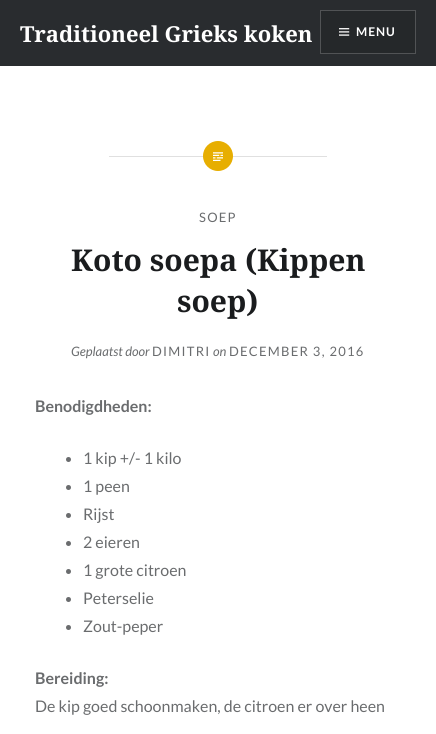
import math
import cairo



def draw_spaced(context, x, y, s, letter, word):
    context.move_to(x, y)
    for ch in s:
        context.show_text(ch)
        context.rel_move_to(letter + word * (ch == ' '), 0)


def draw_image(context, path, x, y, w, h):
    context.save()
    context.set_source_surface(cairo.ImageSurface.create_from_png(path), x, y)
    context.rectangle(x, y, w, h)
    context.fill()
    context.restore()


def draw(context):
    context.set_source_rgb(1, 1, 1)
    context.paint()
    context.set_source_rgb(41 / 255, 44 / 255, 47 / 255)
    context.rectangle(0, 0, 436, 66)
    context.fill()
    context.set_source_rgb(37 / 255, 40 / 255, 42 / 255)
    context.rectangle(320.5, 10.5, 95, 43)
    context.fill_preserve()
    context.set_source_rgb(81 / 255, 83 / 255, 85 / 255)
    context.set_line_width(1)
    context.stroke()
    draw_image(context, "images/1.png", 339, 28, 11, 8)
    context.set_source_rgb(224 / 255, 224 / 255, 224 / 255)
    context.rectangle(109, 156, 218, 1)
    context.fill()
    context.set_source_rgb(231 / 255, 174 / 255, 1 / 255)
    context.arc(218, 156, 15, 0, 2 * math.pi)
    context.fill()
    draw_image(context, "images/2.png", 213, 152, 10, 9)
    context.set_source_rgb(106 / 255, 108 / 255, 110 / 255)
    context.arc(68.5, 459.5, 2.5, 0, 2 * math.pi)
    context.fill()
    context.arc(68.5, 487.5, 2.5, 0, 2 * math.pi)
    context.fill()
    context.arc(68.5, 515.5, 2.5, 0, 2 * math.pi)
    context.fill()
    context.arc(68.5, 543.5, 2.5, 0, 2 * math.pi)
    context.fill()
    context.arc(68.5, 571.5, 2.5, 0, 2 * math.pi)
    context.fill()
    context.arc(68.5, 599.5, 2.5, 0, 2 * math.pi)
    context.fill()
    context.arc(68.5, 627.5, 2.5, 0, 2 * math.pi)
    context.fill()
    context.select_font_face("Noto Serif", cairo.FontSlant.NORMAL, cairo.FontWeight.BOLD)
    context.set_font_size(22)
    context.set_source_rgb(1, 1, 1)
    context.move_to(20, 42)
    context.show_text("Traditioneel Grieks koken")
    context.select_font_face("Lato", cairo.FontSlant.NORMAL, cairo.FontWeight.BOLD)
    context.set_font_size(12)
    draw_spaced(context, 356, 36, "MENU", 1, 0)
    context.select_font_face("Lato")
    context.set_font_size(13)
    context.set_source_rgb(106 / 255, 108 / 255, 110 / 255)
    draw_spaced(context, 199, 222, "SOEP", 1.25, 0)
    context.select_font_face("Noto Serif", cairo.FontSlant.NORMAL, cairo.FontWeight.BOLD)
    context.set_font_size(30)
    context.set_source_rgb(26 / 255, 28 / 255, 30 / 255)
    context.move_to(71, 271)
    context.show_text("Koto soepa (Kippen")
    context.move_to(177, 312)
    context.show_text("soep)")
    context.select_font_face("Lato", cairo.FontSlant.ITALIC)
    context.set_font_size(13)
    context.set_source_rgb(106 / 255, 108 / 255, 110 / 255)
    context.move_to(71, 356)
    context.show_text("Geplaatst door")
    context.select_font_face("Lato")
    draw_spaced(context, 152, 356, "DIMITRI", 1.25, 0)
    context.select_font_face("Lato", cairo.FontSlant.ITALIC)
    context.move_to(213, 356)
    context.show_text("on")
    context.select_font_face("Lato")
    draw_spaced(context, 229, 356, "DECEMBER 3, 2016", 1.25, 0)
    context.select_font_face("Lato", cairo.FontSlant.NORMAL, cairo.FontWeight.BOLD)
    context.set_font_size(16)
    context.move_to(35, 412)
    context.show_text("Benodigdheden:")
    context.select_font_face("Lato")
    context.move_to(83, 464)
    context.show_text("1 kip +/- 1 kilo")
    context.move_to(83, 492)
    context.show_text("1 peen")
    context.move_to(83, 520)
    context.show_text("Rijst")
    context.move_to(83, 548)
    context.show_text("2 eieren")
    context.move_to(83, 576)
    context.show_text("1 grote citroen")
    context.move_to(83, 604)
    context.show_text("Peterselie")
    context.move_to(83, 632)
    context.show_text("Zout-peper")
    context.select_font_face("Lato", cairo.FontSlant.NORMAL, cairo.FontWeight.BOLD)
    context.move_to(35, 684)
    context.show_text("Bereiding:")
    context.select_font_face("Lato")
    context.move_to(35, 712)
    context.show_text("De kip goed schoonmaken, de citroen er over heen")


surface = cairo.ImageSurface(cairo.Format.RGB24, 436, 734)
context = cairo.Context(surface)
options = cairo.FontOptions()
options.set_hint_metrics(cairo.HintMetrics.OFF)
options.set_hint_style(cairo.HintStyle.NONE)
context.set_font_options(options)
context.set_miter_limit(4)
draw(context)
surface.write_to_png("out.png")
